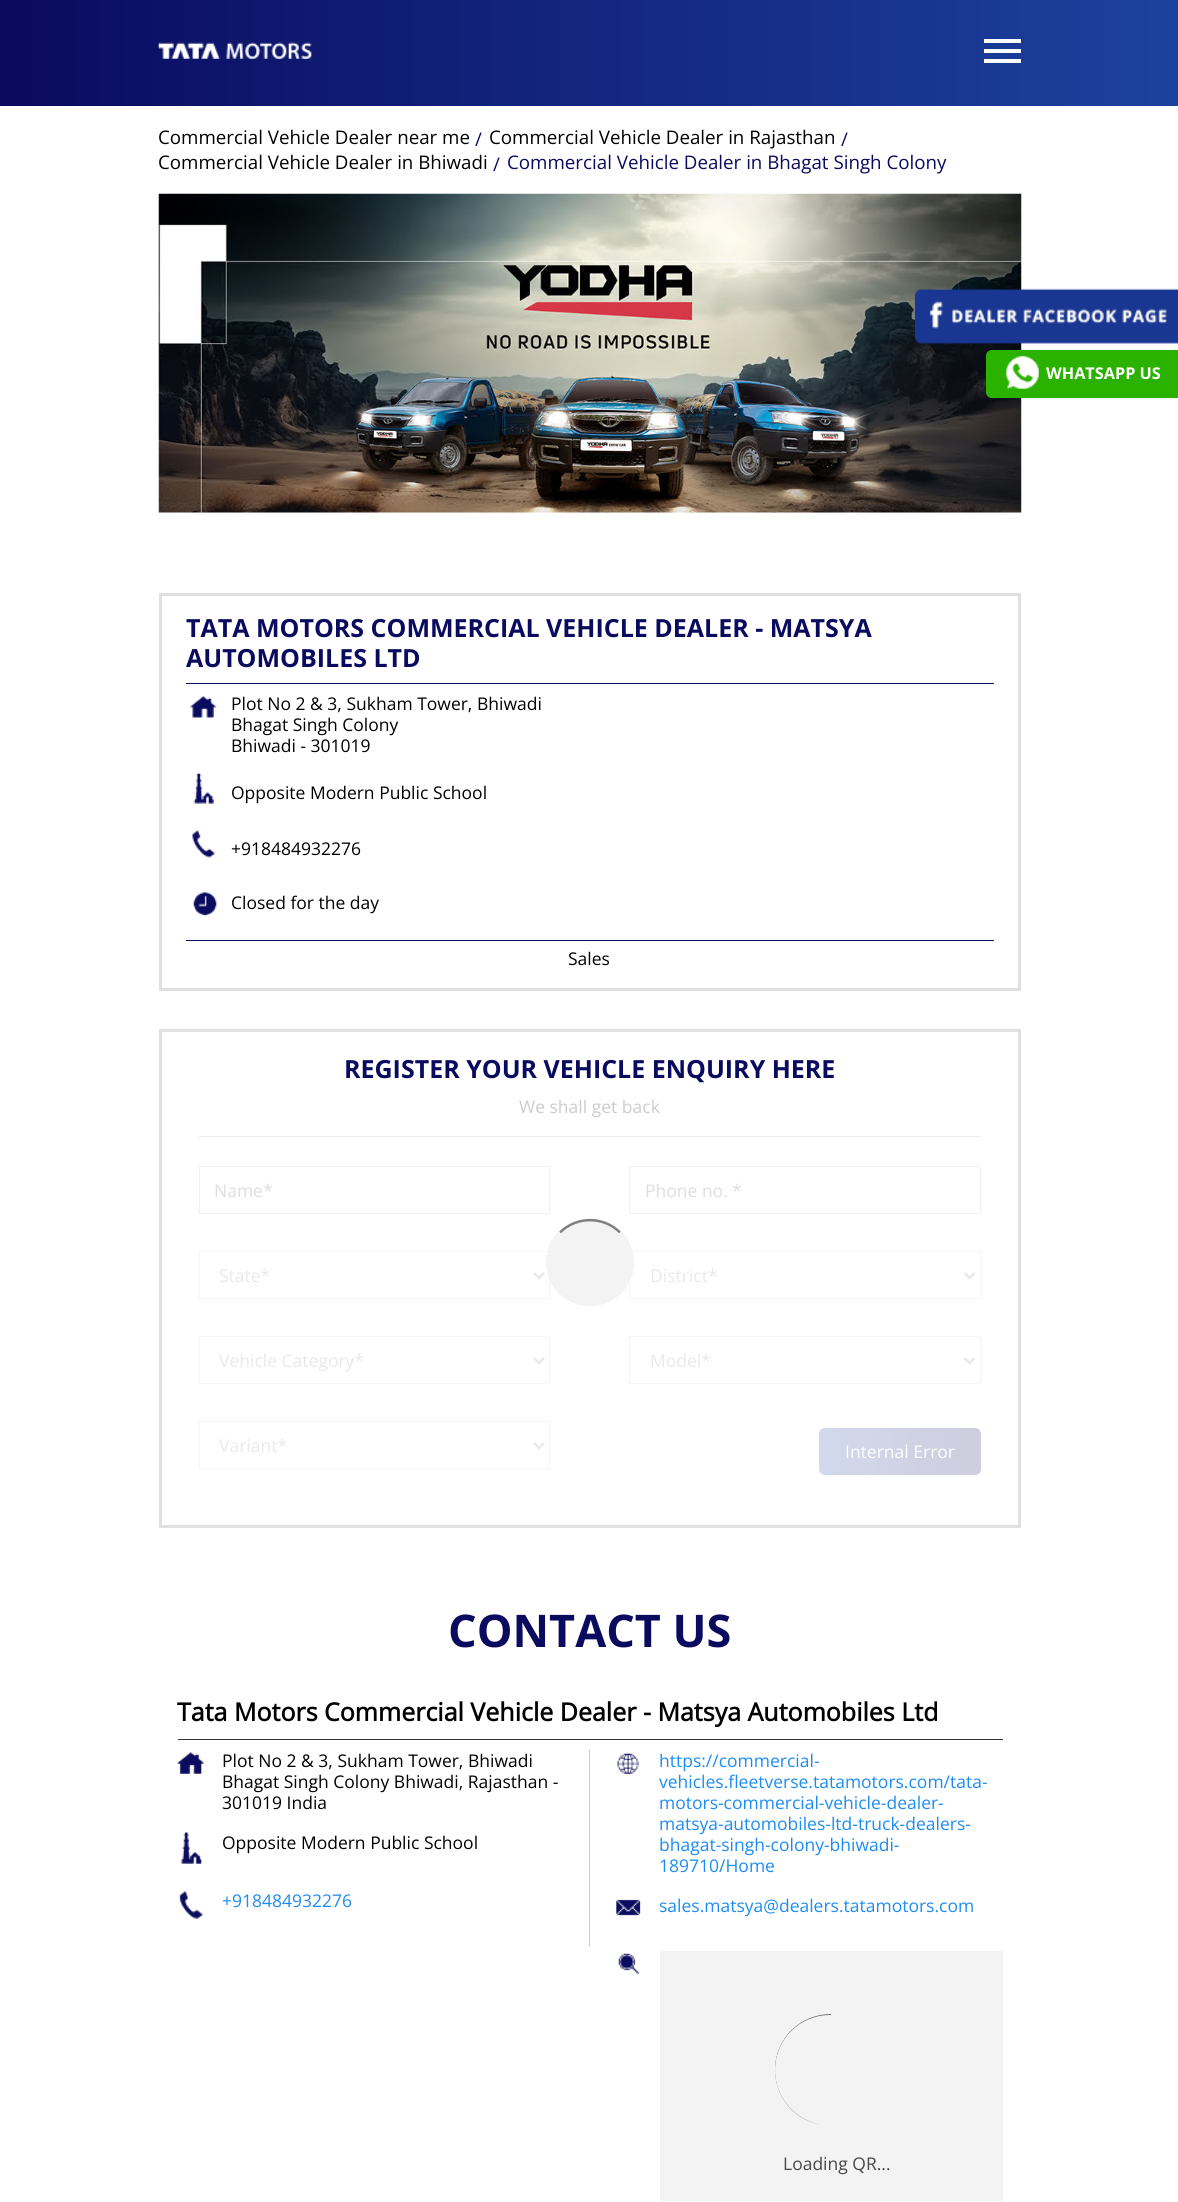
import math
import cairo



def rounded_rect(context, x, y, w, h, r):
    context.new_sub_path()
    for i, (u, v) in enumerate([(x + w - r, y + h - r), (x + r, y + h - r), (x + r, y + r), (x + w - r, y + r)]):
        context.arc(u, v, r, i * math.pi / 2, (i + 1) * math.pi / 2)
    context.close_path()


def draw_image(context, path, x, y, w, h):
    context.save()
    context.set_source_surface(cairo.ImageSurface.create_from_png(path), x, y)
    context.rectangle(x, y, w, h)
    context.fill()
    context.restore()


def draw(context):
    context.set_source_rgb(1, 1, 1)
    context.paint()
    gradient = cairo.LinearGradient(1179, 53, 0, 53)
    gradient.add_color_stop_rgba(0, 28 / 255, 66 / 255, 158 / 255, 1)
    gradient.add_color_stop_rgba(1, 10 / 255, 10 / 255, 95 / 255, 1)
    context.set_source(gradient)
    context.rectangle(0, 0, 1178, 106)
    context.fill()
    draw_image(context, "images/1.png", 158, 42, 155, 18)
    context.set_source_rgb(1, 1, 1)
    context.rectangle(984, 49, 37, 4)
    context.fill()
    context.rectangle(984, 39, 37, 4)
    context.fill()
    context.rectangle(984, 59, 37, 4)
    context.fill()
    draw_image(context, "images/2.png", 158, 193, 864, 320)
    context.rectangle(160.5, 594.5, 859, 395)
    context.set_source_rgb(224 / 255, 224 / 255, 224 / 255)
    context.set_line_width(3)
    context.stroke()
    context.set_source_rgb(15 / 255, 12 / 255, 91 / 255)
    context.rectangle(186, 683, 808, 1)
    context.fill()
    draw_image(context, "images/3.png", 189, 696, 28, 22)
    draw_image(context, "images/4.png", 193, 773, 21, 31)
    draw_image(context, "images/5.png", 192, 830, 24, 28)
    draw_image(context, "images/6.png", 193, 892, 24, 24)
    context.rectangle(186, 940, 808, 1)
    context.fill()
    context.rectangle(160.5, 1030.5, 859, 496)
    context.set_source_rgb(224 / 255, 224 / 255, 224 / 255)
    context.stroke()
    context.set_source_rgb(237 / 255, 237 / 255, 237 / 255)
    context.rectangle(199, 1136, 782, 1)
    context.fill()
    context.rectangle(199.5, 1166.5, 350, 47)
    context.set_source_rgb(241 / 255, 241 / 255, 241 / 255)
    context.set_line_width(1)
    context.stroke()
    context.rectangle(629.5, 1166.5, 351, 47)
    context.stroke()
    context.rectangle(199.5, 1251.5, 350, 47)
    context.set_source_rgb(245 / 255, 245 / 255, 245 / 255)
    context.stroke()
    context.new_path()
    context.move_to(534, 1273)
    context.line_to(539, 1278)
    context.line_to(544, 1273)
    context.set_source_rgb(233 / 255, 233 / 255, 233 / 255)
    context.set_line_width(2.5)
    context.stroke()
    context.rectangle(629.5, 1251.5, 351, 47)
    context.set_source_rgb(245 / 255, 245 / 255, 245 / 255)
    context.set_line_width(1)
    context.stroke()
    context.new_path()
    context.move_to(964.5, 1273)
    context.line_to(969.5, 1278)
    context.line_to(974.5, 1273)
    context.set_source_rgb(233 / 255, 233 / 255, 233 / 255)
    context.set_line_width(2.5)
    context.stroke()
    context.rectangle(199.5, 1336.5, 350, 47)
    context.set_source_rgb(245 / 255, 245 / 255, 245 / 255)
    context.set_line_width(1)
    context.stroke()
    context.new_path()
    context.move_to(534, 1358)
    context.line_to(539, 1363)
    context.line_to(544, 1358)
    context.set_source_rgb(233 / 255, 233 / 255, 233 / 255)
    context.set_line_width(2.5)
    context.stroke()
    context.rectangle(629.5, 1336.5, 351, 47)
    context.set_source_rgb(245 / 255, 245 / 255, 245 / 255)
    context.set_line_width(1)
    context.stroke()
    context.new_path()
    context.move_to(964.5, 1358)
    context.line_to(969.5, 1363)
    context.line_to(974.5, 1358)
    context.set_source_rgb(233 / 255, 233 / 255, 233 / 255)
    context.set_line_width(2.5)
    context.stroke()
    context.rectangle(199.5, 1421.5, 350, 47)
    context.set_source_rgb(245 / 255, 245 / 255, 245 / 255)
    context.set_line_width(1)
    context.stroke()
    context.new_path()
    context.move_to(534, 1443)
    context.line_to(539, 1448)
    context.line_to(544, 1443)
    context.set_source_rgb(233 / 255, 233 / 255, 233 / 255)
    context.set_line_width(2.5)
    context.stroke()
    gradient = cairo.LinearGradient(817, 1441, 983, 1461)
    gradient.add_color_stop_rgba(0.03, 210 / 255, 217 / 255, 236 / 255, 1)
    gradient.add_color_stop_rgba(0.87, 206 / 255, 206 / 255, 223 / 255, 1)
    context.set_source(gradient)
    rounded_rect(context, 819, 1428, 162, 47, 6)
    context.fill()
    context.set_source_rgb(243 / 255, 243 / 255, 243 / 255)
    rounded_rect(context, 546, 1219, 88, 87, 43.5)
    context.fill()
    context.new_path()
    context.move_to(560, 1232.5)
    context.curve_to(576.5, 1216, 603.5, 1216, 620, 1232.5)
    context.set_source_rgb(128 / 255, 128 / 255, 128 / 255)
    context.stroke()
    context.new_path()
    context.move_to(620, 1232.5)
    context.curve_to(630, 1242.5, 634.5, 1257, 631.5, 1271)
    context.curve_to(630, 1279, 626, 1286.5, 620, 1292.5)
    context.curve_to(593.5, 1319, 547.5, 1300, 547.5, 1262.5)
    context.curve_to(547.5, 1251.5, 552, 1240.5, 560, 1232.5)
    context.set_source_rgb(243 / 255, 243 / 255, 243 / 255)
    context.stroke()
    context.set_source_rgb(51 / 255, 51 / 255, 51 / 255)
    context.rectangle(178, 1739, 825, 1)
    context.fill()
    context.set_source_rgb(204 / 255, 204 / 255, 204 / 255)
    context.rectangle(589, 1750, 1, 196)
    context.fill()
    draw_image(context, "images/7.png", 177, 1752, 27, 22)
    draw_image(context, "images/8.png", 181, 1832, 21, 32)
    draw_image(context, "images/9.png", 179, 1891, 24, 28)
    draw_image(context, "images/10.png", 617, 1752, 22, 23)
    draw_image(context, "images/11.png", 616, 1899, 25, 17)
    draw_image(context, "images/12.png", 618, 1953, 21, 21)
    context.set_source_rgb(243 / 255, 243 / 255, 243 / 255)
    context.rectangle(660, 1951, 343, 250)
    context.fill()
    gradient = cairo.LinearGradient(775, 2070, 888, 2070)
    gradient.add_color_stop_rgba(0.1, 125 / 255, 125 / 255, 125 / 255, 1)
    gradient.add_color_stop_rgba(0.42, 243 / 255, 243 / 255, 243 / 255, 1)
    context.set_source(gradient)
    rounded_rect(context, 775, 2014, 113, 112, 56)
    context.fill()
    context.set_source_rgb(111 / 255, 111 / 255, 111 / 255)
    context.new_path()
    context.move_to(831, 2014)
    context.line_to(831, 2070)
    context.line_to(775, 2070)
    context.curve_to(775, 2039, 800, 2014, 831, 2014)
    context.close_path()
    context.fill()
    context.set_source_rgb(243 / 255, 243 / 255, 243 / 255)
    rounded_rect(context, 775, 2015, 111, 110, 55)
    context.fill()
    draw_image(context, "images/13.png", 915, 288, 263, 56)
    context.set_source_rgb(43 / 255, 178 / 255, 0)
    context.new_path()
    context.move_to(992, 350)
    context.line_to(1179, 350)
    context.line_to(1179, 398)
    context.line_to(992, 398)
    context.curve_to(988.5, 398, 986, 395.5, 986, 392)
    context.line_to(986, 356)
    context.curve_to(986, 352.5, 988.5, 350, 992, 350)
    context.close_path()
    context.fill()
    draw_image(context, "images/14.png", 1006, 356, 33, 33)
    context.select_font_face("Open Sans")
    context.set_font_size(18.75)
    context.set_source_rgb(0, 0, 0)
    context.move_to(158, 144)
    context.show_text("Commercial Vehicle Dealer near me")
    context.set_source_rgb(10 / 255, 10 / 255, 95 / 255)
    context.move_to(475, 146)
    context.show_text("/")
    context.set_source_rgb(0, 0, 0)
    context.move_to(489, 144)
    context.show_text("Commercial Vehicle Dealer in Rajasthan")
    context.set_source_rgb(10 / 255, 10 / 255, 95 / 255)
    context.move_to(841, 146)
    context.show_text("/")
    context.set_source_rgb(0, 0, 0)
    context.move_to(158, 169)
    context.show_text("Commercial Vehicle Dealer in Bhiwadi")
    context.set_source_rgb(10 / 255, 10 / 255, 95 / 255)
    context.move_to(493, 171)
    context.show_text("/")
    context.move_to(507, 169)
    context.show_text("Commercial Vehicle Dealer in Bhagat Singh Colony")
    context.select_font_face("Open Sans", cairo.FontSlant.NORMAL, cairo.FontWeight.BOLD)
    context.set_font_size(25)
    context.move_to(186, 637)
    context.show_text("TATA MOTORS COMMERCIAL VEHICLE DEALER - MATSYA")
    context.move_to(186, 667)
    context.show_text("AUTOMOBILES LTD")
    context.select_font_face("Open Sans")
    context.set_font_size(17.5)
    context.set_source_rgb(0, 0, 0)
    context.move_to(231, 710)
    context.show_text("Plot No 2 & 3, Sukham Tower, Bhiwadi")
    context.move_to(231, 731)
    context.show_text("Bhagat Singh Colony")
    context.move_to(231, 752)
    context.show_text("Bhiwadi - 301019")
    context.move_to(231, 799)
    context.show_text("Opposite Modern Public School")
    context.move_to(231, 855)
    context.show_text("+918484932276")
    context.move_to(231, 909)
    context.show_text("Closed for the day")
    context.move_to(568, 965)
    context.show_text("Sales")
    context.select_font_face("Open Sans", cairo.FontSlant.NORMAL, cairo.FontWeight.BOLD)
    context.set_font_size(25)
    context.set_source_rgb(10 / 255, 10 / 255, 95 / 255)
    context.move_to(344, 1078)
    context.show_text("REGISTER YOUR VEHICLE ENQUIRY HERE")
    context.select_font_face("Open Sans")
    context.set_font_size(17.5)
    context.set_source_rgb(204 / 255, 204 / 255, 204 / 255)
    context.move_to(519, 1113)
    context.show_text("We shall get back")
    context.set_source_rgb(222 / 255, 222 / 255, 222 / 255)
    context.move_to(214, 1197)
    context.show_text("Name*")
    context.move_to(645, 1197)
    context.show_text("Phone no. *")
    context.set_source_rgb(233 / 255, 233 / 255, 233 / 255)
    context.move_to(219, 1282)
    context.show_text("State*")
    context.move_to(650, 1282)
    context.show_text("District*")
    context.move_to(219, 1367)
    context.show_text("Vehicle Category*")
    context.move_to(650, 1367)
    context.show_text("Model*")
    context.move_to(219, 1452)
    context.show_text("Variant*")
    context.set_source_rgb(1, 1, 1)
    context.move_to(845, 1458)
    context.show_text("Internal Error")
    context.select_font_face("Open Sans", cairo.FontSlant.NORMAL, cairo.FontWeight.BOLD)
    context.set_font_size(45)
    context.set_source_rgb(10 / 255, 10 / 255, 95 / 255)
    context.move_to(448, 1647)
    context.show_text("CONTACT US")
    context.select_font_face("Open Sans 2", cairo.FontSlant.NORMAL, cairo.FontWeight.BOLD)
    context.set_font_size(25)
    context.set_source_rgb(0, 0, 0)
    context.move_to(177, 1721)
    context.show_text("Tata Motors Commercial Vehicle Dealer - Matsya Automobiles Ltd")
    context.select_font_face("Open Sans")
    context.set_font_size(17.5)
    context.move_to(222, 1767)
    context.show_text("Plot No 2 & 3, Sukham Tower, Bhiwadi")
    context.move_to(222, 1788)
    context.show_text("Bhagat Singh Colony Bhiwadi, Rajasthan -")
    context.move_to(222, 1809)
    context.show_text("301019 India")
    context.move_to(222, 1849)
    context.show_text("Opposite Modern Public School")
    context.set_source_rgb(28 / 255, 140 / 255, 245 / 255)
    context.move_to(222, 1907)
    context.show_text("+918484932276")
    context.move_to(659, 1767)
    context.show_text("https://commercial-")
    context.move_to(659, 1788)
    context.show_text("vehicles.fleetverse.tatamotors.com/tata-")
    context.move_to(659, 1809)
    context.show_text("motors-commercial-vehicle-dealer-")
    context.move_to(659, 1830)
    context.show_text("matsya-automobiles-ltd-truck-dealers-")
    context.move_to(659, 1851)
    context.show_text("bhagat-singh-colony-bhiwadi-")
    context.move_to(659, 1872)
    context.show_text("189710/Home")
    context.move_to(659, 1912)
    context.show_text("sales.matsya@dealers.tatamotors.com")
    context.set_source_rgb(72 / 255, 72 / 255, 72 / 255)
    context.move_to(783, 2170)
    context.show_text("Loading QR...")
    context.select_font_face("Open Sans", cairo.FontSlant.NORMAL, cairo.FontWeight.BOLD)
    context.set_font_size(16.25)
    context.set_source_rgb(1, 1, 1)
    context.move_to(1046, 379)
    context.show_text("WHATSAPP US")


surface = cairo.ImageSurface(cairo.Format.RGB24, 1178, 2202)
context = cairo.Context(surface)
options = cairo.FontOptions()
options.set_hint_metrics(cairo.HintMetrics.OFF)
options.set_hint_style(cairo.HintStyle.NONE)
context.set_font_options(options)
context.set_miter_limit(4)
draw(context)
surface.write_to_png("out.png")
